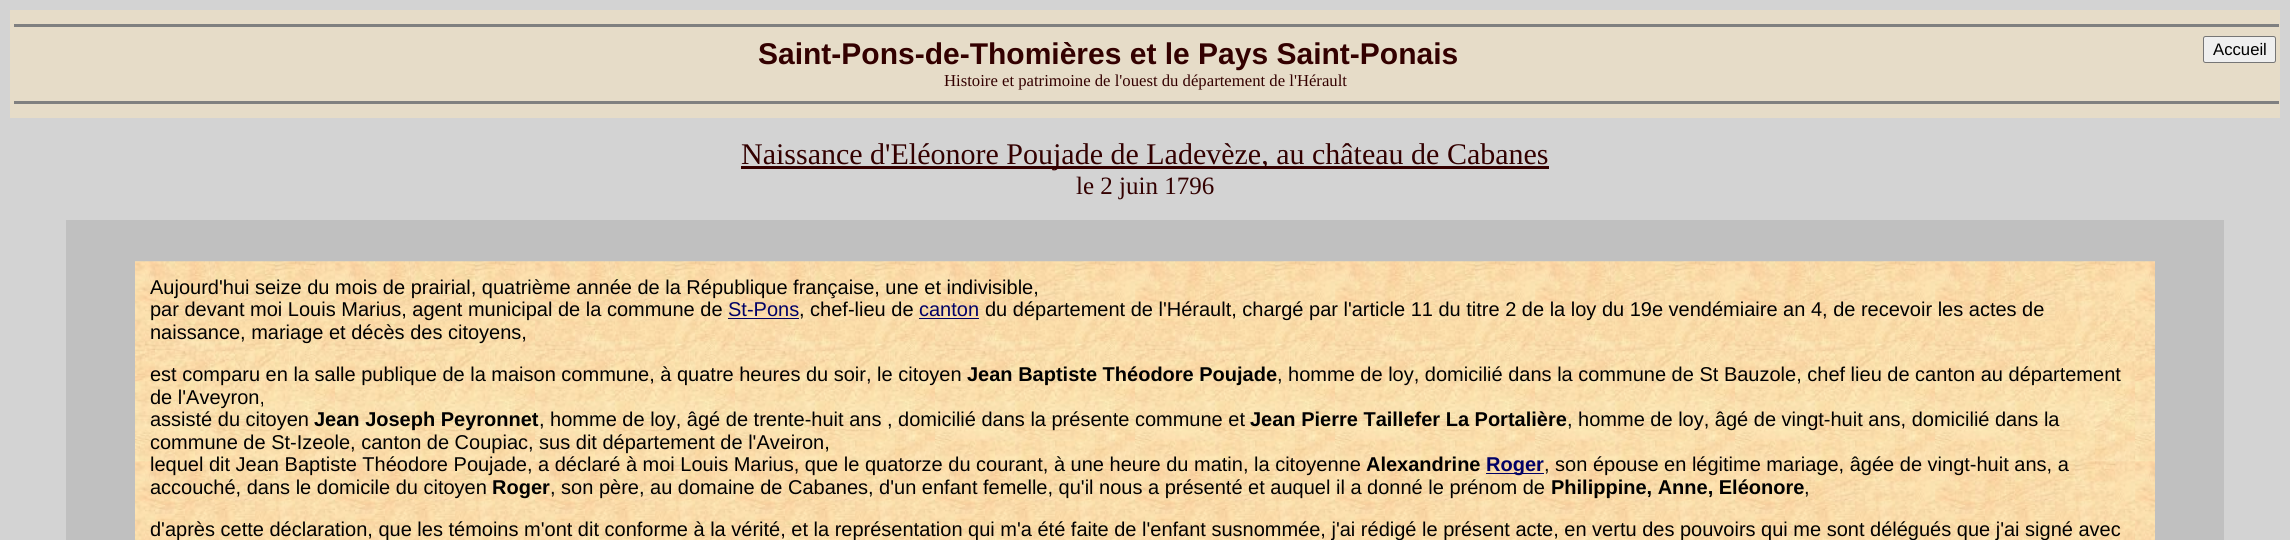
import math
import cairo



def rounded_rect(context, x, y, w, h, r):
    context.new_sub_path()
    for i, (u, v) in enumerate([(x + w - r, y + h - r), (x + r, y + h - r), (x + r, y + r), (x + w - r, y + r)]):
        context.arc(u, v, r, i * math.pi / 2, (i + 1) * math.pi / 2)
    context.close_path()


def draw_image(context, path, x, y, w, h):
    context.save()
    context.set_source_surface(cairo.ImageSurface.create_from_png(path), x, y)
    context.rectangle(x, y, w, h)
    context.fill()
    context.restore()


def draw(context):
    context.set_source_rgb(211 / 255, 211 / 255, 211 / 255)
    context.paint()
    context.set_source_rgb(230 / 255, 220 / 255, 200 / 255)
    context.rectangle(10, 10, 2270, 108)
    context.fill()
    context.set_source_rgb(128 / 255, 128 / 255, 128 / 255)
    context.rectangle(14, 24, 2265, 3)
    context.fill()
    context.set_source_rgb(239 / 255, 239 / 255, 239 / 255)
    rounded_rect(context, 2203.5, 36.5, 72, 26, 2)
    context.fill_preserve()
    context.set_source_rgb(118 / 255, 118 / 255, 118 / 255)
    context.set_line_width(1)
    context.stroke()
    context.set_source_rgb(128 / 255, 128 / 255, 128 / 255)
    context.rectangle(14, 101, 2265, 3)
    context.fill()
    context.set_source_rgb(51 / 255, 0, 0)
    context.rectangle(741, 166, 808, 3)
    context.fill()
    context.set_source_rgb(192 / 255, 192 / 255, 192 / 255)
    context.rectangle(66, 220, 2158, 320)
    context.fill()
    draw_image(context, "images/1.png", 135, 261, 2020, 279)
    context.set_source_rgb(0, 0, 102 / 255)
    context.rectangle(728, 318, 71, 1)
    context.fill()
    context.rectangle(919, 318, 60, 1)
    context.fill()
    context.rectangle(1486, 473, 58, 1)
    context.fill()
    context.select_font_face("Liberation Sans", cairo.FontSlant.NORMAL, cairo.FontWeight.BOLD)
    context.set_font_size(30)
    context.set_source_rgb(51 / 255, 0, 0)
    context.move_to(758, 64)
    context.show_text("Saint-Pons-de-Thomières et le Pays Saint-Ponais")
    context.select_font_face("Liberation Sans")
    context.set_font_size(16.7)
    context.set_source_rgb(0, 0, 0)
    context.move_to(2213, 55)
    context.show_text("Accueil")
    context.select_font_face("Liberation Serif")
    context.set_source_rgb(51 / 255, 0, 0)
    context.move_to(944, 86)
    context.show_text("Histoire et patrimoine de l'ouest du département de l'Hérault")
    context.set_font_size(30)
    context.move_to(741, 164)
    context.show_text("Naissance d'Eléonore Poujade de Ladevèze, au château de Cabanes")
    context.set_font_size(25)
    context.move_to(1076, 194)
    context.show_text("le 2 juin 1796")
    context.select_font_face("Liberation Sans")
    context.set_font_size(20)
    context.set_source_rgb(0, 0, 0)
    context.move_to(150, 294)
    context.show_text("Aujourd'hui seize du mois de prairial, quatrième année de la République française, une et indivisible,")
    context.move_to(150, 316)
    context.show_text("par devant moi Louis Marius, agent municipal de la commune de")
    context.set_source_rgb(0, 0, 102 / 255)
    context.move_to(728, 316)
    context.show_text("St-Pons")
    context.set_source_rgb(0, 0, 0)
    context.move_to(799, 316)
    context.show_text(", chef-lieu de")
    context.set_source_rgb(0, 0, 102 / 255)
    context.move_to(919, 316)
    context.show_text("canton")
    context.set_source_rgb(0, 0, 0)
    context.move_to(985, 316)
    context.show_text("du département de l'Hérault, chargé par l'article 11 du titre 2 de la loy du 19e vendémiaire an 4, de recevoir les actes de")
    context.move_to(150, 339)
    context.show_text("naissance, mariage et décès des citoyens,")
    context.move_to(150, 381)
    context.show_text("est comparu en la salle publique de la maison commune, à quatre heures du soir, le citoyen")
    context.select_font_face("Liberation Sans", cairo.FontSlant.NORMAL, cairo.FontWeight.BOLD)
    context.move_to(967, 381)
    context.show_text("Jean Baptiste Théodore Poujade")
    context.select_font_face("Liberation Sans")
    context.move_to(1277, 381)
    context.show_text(", homme de loy, domicilié dans la commune de St Bauzole, chef lieu de canton au département")
    context.move_to(150, 404)
    context.show_text("de l'Aveyron,")
    context.move_to(150, 426)
    context.show_text("assisté du citoyen")
    context.select_font_face("Liberation Sans", cairo.FontSlant.NORMAL, cairo.FontWeight.BOLD)
    context.move_to(314, 426)
    context.show_text("Jean Joseph Peyronnet")
    context.select_font_face("Liberation Sans")
    context.move_to(539, 426)
    context.show_text(", homme de loy, âgé de trente-huit ans , domicilié dans la présente commune et")
    context.select_font_face("Liberation Sans", cairo.FontSlant.NORMAL, cairo.FontWeight.BOLD)
    context.move_to(1250, 426)
    context.show_text("Jean Pierre Taillefer La Portalière")
    context.select_font_face("Liberation Sans")
    context.move_to(1567, 426)
    context.show_text(", homme de loy, âgé de vingt-huit ans, domicilié dans la")
    context.move_to(150, 449)
    context.show_text("commune de St-Izeole, canton de Coupiac, sus dit département de l'Aveiron,")
    context.move_to(150, 471)
    context.show_text("lequel dit Jean Baptiste Théodore Poujade, a déclaré à moi Louis Marius, que le quatorze du courant, à une heure du matin, la citoyenne")
    context.select_font_face("Liberation Sans", cairo.FontSlant.NORMAL, cairo.FontWeight.BOLD)
    context.move_to(1366, 471)
    context.show_text("Alexandrine")
    context.set_source_rgb(0, 0, 102 / 255)
    context.move_to(1486, 471)
    context.show_text("Roger")
    context.select_font_face("Liberation Sans")
    context.set_source_rgb(0, 0, 0)
    context.move_to(1544, 471)
    context.show_text(", son épouse en légitime mariage, âgée de vingt-huit ans, a")
    context.move_to(150, 494)
    context.show_text("accouché, dans le domicile du citoyen")
    context.select_font_face("Liberation Sans", cairo.FontSlant.NORMAL, cairo.FontWeight.BOLD)
    context.move_to(492, 494)
    context.show_text("Roger")
    context.select_font_face("Liberation Sans")
    context.move_to(550, 494)
    context.show_text(", son père, au domaine de Cabanes, d'un enfant femelle, qu'il nous a présenté et auquel il a donné le prénom de")
    context.select_font_face("Liberation Sans", cairo.FontSlant.NORMAL, cairo.FontWeight.BOLD)
    context.move_to(1551, 494)
    context.show_text("Philippine, Anne, Eléonore")
    context.select_font_face("Liberation Sans")
    context.move_to(1804, 494)
    context.show_text(",")
    context.move_to(150, 536)
    context.show_text("d'après cette déclaration, que les témoins m'ont dit conforme à la vérité, et la représentation qui m'a été faite de l'enfant susnommée, j'ai rédigé le présent acte, en vertu des pouvoirs qui me sont délégués que j'ai signé avec")


surface = cairo.ImageSurface(cairo.Format.RGB24, 2290, 540)
context = cairo.Context(surface)
options = cairo.FontOptions()
options.set_hint_metrics(cairo.HintMetrics.OFF)
options.set_hint_style(cairo.HintStyle.NONE)
context.set_font_options(options)
context.set_miter_limit(4)
draw(context)
surface.write_to_png("out.png")
